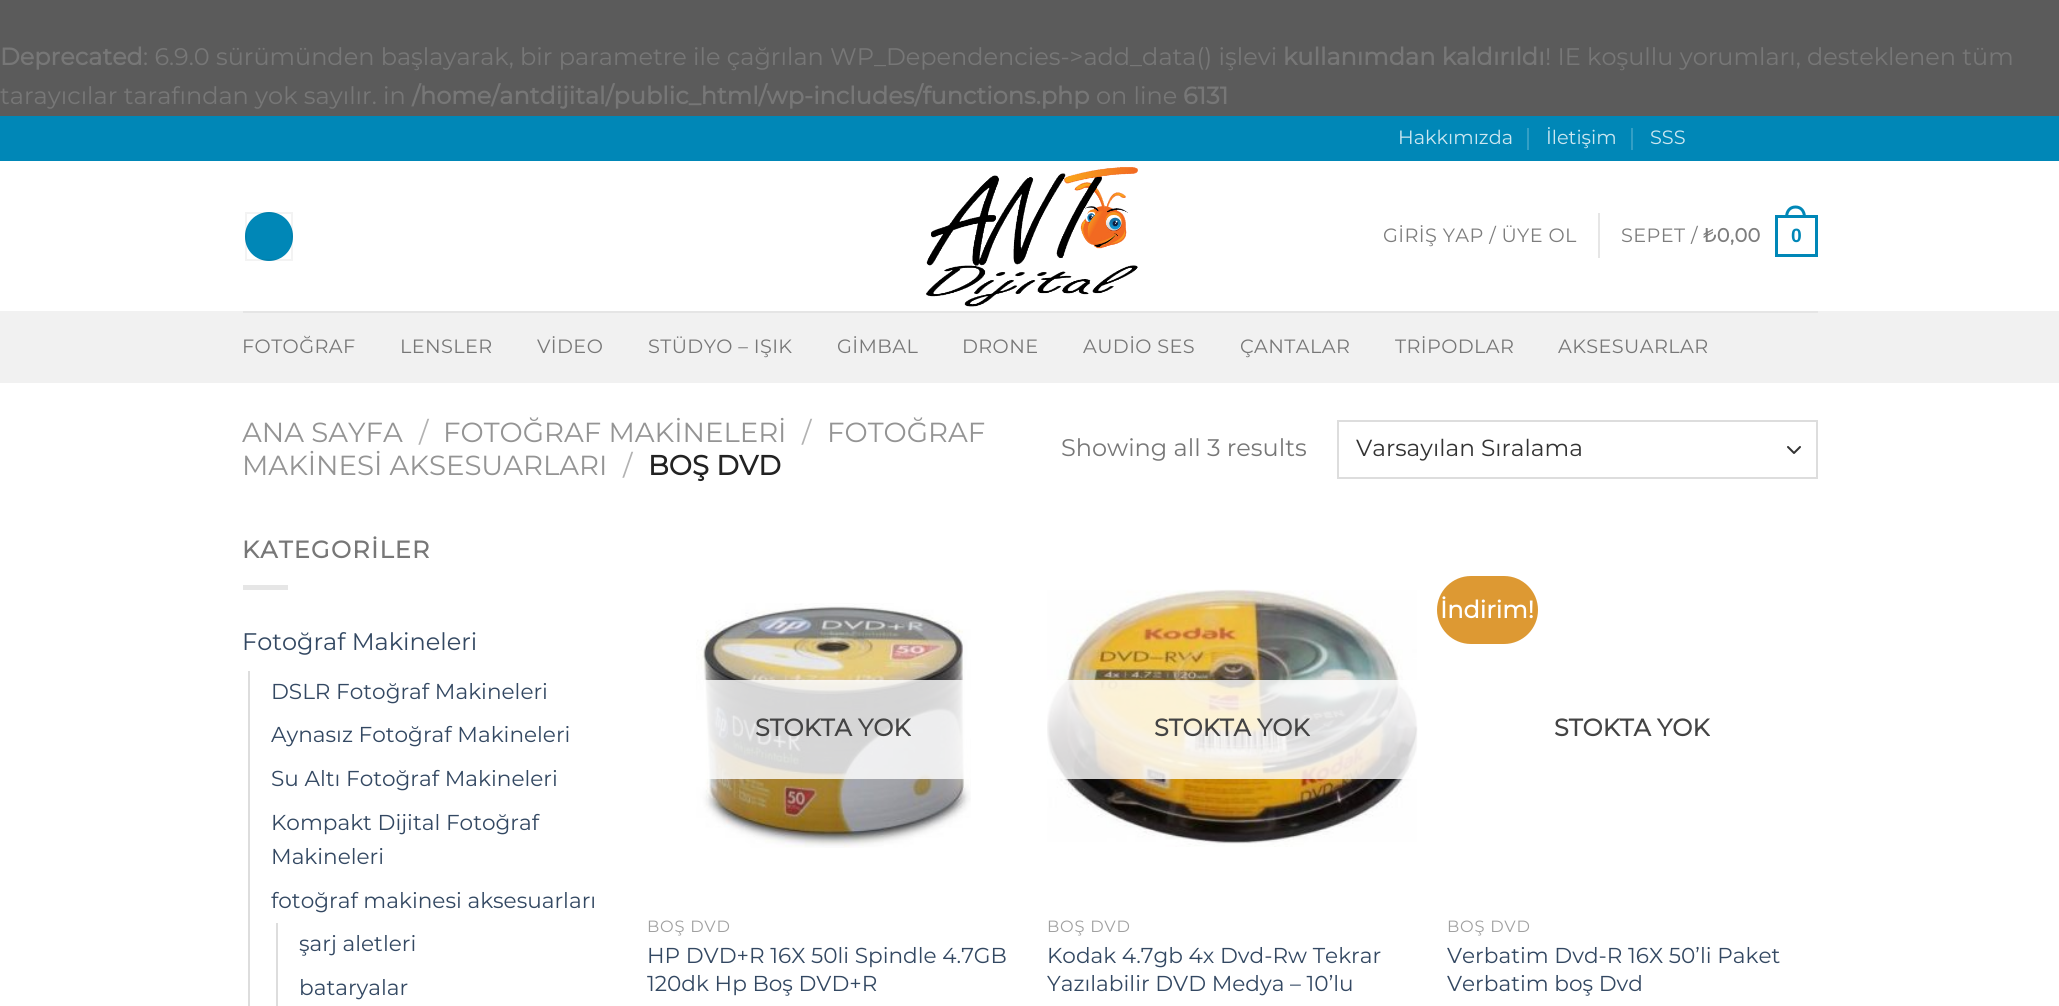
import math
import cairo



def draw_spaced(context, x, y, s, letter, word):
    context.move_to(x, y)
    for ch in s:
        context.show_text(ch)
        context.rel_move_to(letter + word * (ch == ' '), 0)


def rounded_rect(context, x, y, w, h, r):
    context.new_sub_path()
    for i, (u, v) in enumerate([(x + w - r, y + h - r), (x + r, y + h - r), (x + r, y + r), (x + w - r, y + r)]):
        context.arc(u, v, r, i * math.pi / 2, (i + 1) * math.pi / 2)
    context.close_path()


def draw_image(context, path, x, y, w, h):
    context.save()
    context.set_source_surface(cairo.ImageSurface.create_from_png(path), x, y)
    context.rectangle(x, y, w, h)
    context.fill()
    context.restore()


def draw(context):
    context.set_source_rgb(91 / 255, 91 / 255, 91 / 255)
    context.paint()
    context.set_source_rgb(1, 1, 1)
    context.rectangle(0, 161, 2059, 845)
    context.fill()
    context.set_source_rgb(0, 135 / 255, 183 / 255)
    context.rectangle(0, 116, 2059, 45)
    context.fill()
    context.set_source_rgb(51 / 255, 159 / 255, 197 / 255)
    context.rectangle(1527, 128, 2, 22)
    context.fill()
    context.rectangle(1631, 128, 2, 22)
    context.fill()
    context.set_source_rgb(0, 135 / 255, 183 / 255)
    rounded_rect(context, 245, 212, 48, 49, 24)
    context.fill()
    context.rectangle(246, 213, 46, 47)
    context.set_source_rgba(0, 0, 0, 0.05)
    context.stroke()
    draw_image(context, "images/1.png", 926, 167, 212, 140)
    context.set_source_rgb(230 / 255, 230 / 255, 230 / 255)
    context.rectangle(1598, 213, 2, 45)
    context.fill()
    context.rectangle(1776.5, 216.5, 40, 39)
    context.set_source_rgb(0, 135 / 255, 183 / 255)
    context.set_line_width(3)
    context.stroke()
    context.set_fill_rule(cairo.FillRule.EVEN_ODD)
    context.new_path()
    context.move_to(1795.5, 205.5)
    context.curve_to(1802.5, 205.5, 1806, 211, 1806, 217.5)
    context.line_to(1785, 217.5)
    context.curve_to(1785, 211, 1788.5, 205.5, 1795.5, 205.5)
    context.close_path()
    context.move_to(1795.5, 208.5)
    context.curve_to(1801, 208.5, 1803, 213, 1803, 217.5)
    context.line_to(1788, 217.5)
    context.curve_to(1788, 213, 1790, 208.5, 1795.5, 208.5)
    context.close_path()
    context.fill()
    context.set_source_rgb(241 / 255, 241 / 255, 241 / 255)
    context.rectangle(0, 311, 2059, 72)
    context.fill()
    context.set_source_rgb(229 / 255, 229 / 255, 229 / 255)
    context.rectangle(243, 311, 1575, 2)
    context.fill()
    context.new_path()
    context.move_to(1788, 447)
    context.line_to(1794, 453)
    context.line_to(1800, 447)
    context.set_source_rgb(51 / 255, 51 / 255, 51 / 255)
    context.set_line_width(2)
    context.set_line_cap(cairo.LineCap.ROUND)
    context.set_line_join(cairo.LineJoin.ROUND)
    context.stroke()
    context.rectangle(1338, 421, 479, 57)
    context.set_source_rgb(221 / 255, 221 / 255, 221 / 255)
    context.set_line_cap(cairo.LineCap.BUTT)
    context.set_line_join(cairo.LineJoin.MITER)
    context.stroke()
    context.set_source_rgb(230 / 255, 230 / 255, 230 / 255)
    context.rectangle(243, 585, 45, 5)
    context.fill()
    context.set_source_rgb(221 / 255, 221 / 255, 221 / 255)
    context.rectangle(248, 671, 2, 335)
    context.fill()
    context.rectangle(276, 923, 2, 83)
    context.fill()
    draw_image(context, "images/2.png", 696, 603, 275, 245)
    context.set_source_rgba(1, 1, 1, 0.81)
    context.rectangle(704, 680, 266, 99)
    context.fill()
    draw_image(context, "images/3.png", 1047, 589, 371, 258)
    context.rectangle(1047, 680, 371, 99)
    context.fill()
    context.set_source_rgb(221 / 255, 153 / 255, 51 / 255)
    rounded_rect(context, 1437, 576, 101, 68, 34)
    context.fill()
    context.select_font_face("Montserrat", cairo.FontSlant.NORMAL, cairo.FontWeight.BOLD)
    context.set_font_size(24)
    context.set_source_rgb(119 / 255, 119 / 255, 119 / 255)
    context.move_to(0, 65)
    context.show_text("Deprecated")
    context.select_font_face("Montserrat Thin")
    context.move_to(143, 65)
    context.show_text(": 6.9.0 sürümünden başlayarak, bir parametre ile çağrılan WP_Dependencies->add_data() işlevi")
    context.select_font_face("Montserrat", cairo.FontSlant.NORMAL, cairo.FontWeight.BOLD)
    context.move_to(1283, 65)
    context.show_text("kullanımdan kaldırıldı")
    context.select_font_face("Montserrat Thin")
    context.move_to(1545, 65)
    context.show_text("! IE koşullu yorumları, desteklenen tüm")
    context.move_to(0, 104)
    context.show_text("tarayıcılar tarafından yok sayılır. in")
    context.select_font_face("Montserrat", cairo.FontSlant.NORMAL, cairo.FontWeight.BOLD)
    context.move_to(412, 104)
    context.show_text("/home/antdijital/public_html/wp-includes/functions.php")
    context.select_font_face("Montserrat Thin")
    context.move_to(1096, 104)
    context.show_text("on line")
    context.select_font_face("Montserrat", cairo.FontSlant.NORMAL, cairo.FontWeight.BOLD)
    context.move_to(1183, 104)
    context.show_text("6131")
    context.select_font_face("Montserrat Thin")
    context.set_font_size(19.25)
    context.set_source_rgb(204 / 255, 231 / 255, 241 / 255)
    context.move_to(1398, 144)
    context.show_text("Hakkımızda")
    context.move_to(1546, 144)
    context.show_text("İletişim")
    context.move_to(1650, 144)
    context.show_text("SSS")
    context.set_source_rgb(125 / 255, 125 / 255, 125 / 255)
    draw_spaced(context, 1383, 242, "GİRİŞ YAP / ÜYE OL", 0.4, 0)
    draw_spaced(context, 1621, 242, "SEPET /", 0.4, 0)
    context.select_font_face("Montserrat", cairo.FontSlant.NORMAL, cairo.FontWeight.BOLD)
    draw_spaced(context, 1703, 242, "₺0,00", 0.4, 0)
    context.select_font_face("Liberation Sans", cairo.FontSlant.NORMAL, cairo.FontWeight.BOLD)
    context.set_source_rgb(0, 135 / 255, 183 / 255)
    draw_spaced(context, 1791, 242, "0", 0.4, 0)
    context.select_font_face("Montserrat Thin")
    context.set_source_rgb(119 / 255, 119 / 255, 119 / 255)
    draw_spaced(context, 242, 353, "FOTOĞRAF", 0.4, 0)
    draw_spaced(context, 400, 353, "LENSLER", 0.4, 0)
    draw_spaced(context, 537, 353, "VİDEO", 0.4, 0)
    draw_spaced(context, 648, 353, "STÜDYO – IŞIK", 0.4, 0)
    draw_spaced(context, 837, 353, "GİMBAL", 0.4, 0)
    draw_spaced(context, 962, 353, "DRONE", 0.4, 0)
    draw_spaced(context, 1083, 353, "AUDİO SES", 0.4, 0)
    draw_spaced(context, 1240, 353, "ÇANTALAR", 0.4, 0)
    draw_spaced(context, 1395, 353, "TRİPODLAR", 0.4, 0)
    draw_spaced(context, 1558, 353, "AKSESUARLAR", 0.4, 0)
    context.set_font_size(27.6)
    context.set_source_rgb(148 / 255, 148 / 255, 148 / 255)
    context.move_to(242, 442)
    context.show_text("ANA SAYFA")
    context.set_source_rgb(178 / 255, 178 / 255, 178 / 255)
    context.move_to(419, 442)
    context.show_text("/")
    context.set_source_rgb(148 / 255, 148 / 255, 148 / 255)
    context.move_to(443, 442)
    context.show_text("FOTOĞRAF MAKİNELERİ")
    context.set_source_rgb(178 / 255, 178 / 255, 178 / 255)
    context.move_to(802, 442)
    context.show_text("/")
    context.set_source_rgb(148 / 255, 148 / 255, 148 / 255)
    context.move_to(827, 442)
    context.show_text("FOTOĞRAF")
    context.move_to(242, 475)
    context.show_text("MAKİNESİ AKSESUARLARI")
    context.set_source_rgb(178 / 255, 178 / 255, 178 / 255)
    context.move_to(623, 475)
    context.show_text("/")
    context.select_font_face("Montserrat", cairo.FontSlant.NORMAL, cairo.FontWeight.BOLD)
    context.set_source_rgb(34 / 255, 34 / 255, 34 / 255)
    context.move_to(648, 475)
    context.show_text("BOŞ DVD")
    context.select_font_face("Montserrat Thin")
    context.set_font_size(24)
    context.set_source_rgb(119 / 255, 119 / 255, 119 / 255)
    context.move_to(1061, 456)
    context.show_text("Showing all 3 results")
    context.set_font_size(23.25)
    context.set_source_rgb(51 / 255, 51 / 255, 51 / 255)
    context.move_to(1356, 456)
    context.show_text("Varsayılan Sıralama")
    context.select_font_face("Montserrat", cairo.FontSlant.NORMAL, cairo.FontWeight.BOLD)
    context.set_font_size(24)
    context.set_source_rgb(119 / 255, 119 / 255, 119 / 255)
    draw_spaced(context, 242, 558, "KATEGORİLER", 1.25, 0)
    context.select_font_face("Montserrat Thin")
    context.set_source_rgb(51 / 255, 72 / 255, 98 / 255)
    context.move_to(242, 650)
    context.show_text("Fotoğraf Makineleri")
    context.set_font_size(21.6)
    context.move_to(271, 699)
    context.show_text("DSLR Fotoğraf Makineleri")
    context.move_to(271, 742)
    context.show_text("Aynasız Fotoğraf Makineleri")
    context.move_to(271, 786)
    context.show_text("Su Altı Fotoğraf Makineleri")
    context.move_to(271, 830)
    context.show_text("Kompakt Dijital Fotoğraf")
    context.move_to(271, 864)
    context.show_text("Makineleri")
    context.move_to(271, 908)
    context.show_text("fotoğraf makinesi aksesuarları")
    context.move_to(299, 951)
    context.show_text("şarj aletleri")
    context.move_to(299, 995)
    context.show_text("bataryalar")
    context.select_font_face("Montserrat", cairo.FontSlant.NORMAL, cairo.FontWeight.BOLD)
    context.set_font_size(24)
    context.set_source_rgb(68 / 255, 68 / 255, 68 / 255)
    context.move_to(755, 736)
    context.show_text("STOKTA YOK")
    context.select_font_face("Montserrat Thin")
    context.set_font_size(16.25)
    context.set_source_rgb(160 / 255, 160 / 255, 160 / 255)
    draw_spaced(context, 647, 932, "BOŞ DVD", 0.75, 0)
    context.set_font_size(21.6)
    context.set_source_rgb(51 / 255, 72 / 255, 98 / 255)
    context.move_to(647, 963)
    context.show_text("HP DVD+R 16X 50li Spindle 4.7GB")
    context.move_to(647, 991)
    context.show_text("120dk Hp Boş DVD+R")
    context.select_font_face("Montserrat", cairo.FontSlant.NORMAL, cairo.FontWeight.BOLD)
    context.set_font_size(24)
    context.set_source_rgb(68 / 255, 68 / 255, 68 / 255)
    context.move_to(1154, 736)
    context.show_text("STOKTA YOK")
    context.select_font_face("Montserrat Thin")
    context.set_font_size(16.25)
    context.set_source_rgb(160 / 255, 160 / 255, 160 / 255)
    draw_spaced(context, 1047, 932, "BOŞ DVD", 0.75, 0)
    context.set_font_size(21.6)
    context.set_source_rgb(51 / 255, 72 / 255, 98 / 255)
    context.move_to(1047, 963)
    context.show_text("Kodak 4.7gb 4x Dvd-Rw Tekrar")
    context.move_to(1047, 991)
    context.show_text("Yazılabilir DVD Medya – 10’lu")
    context.select_font_face("Montserrat", cairo.FontSlant.NORMAL, cairo.FontWeight.BOLD)
    context.set_font_size(24)
    context.set_source_rgb(1, 1, 1)
    context.move_to(1440, 618)
    context.show_text("İndirim!")
    context.set_source_rgb(68 / 255, 68 / 255, 68 / 255)
    context.move_to(1554, 736)
    context.show_text("STOKTA YOK")
    context.select_font_face("Montserrat Thin")
    context.set_font_size(16.25)
    context.set_source_rgb(160 / 255, 160 / 255, 160 / 255)
    draw_spaced(context, 1447, 932, "BOŞ DVD", 0.75, 0)
    context.set_font_size(21.6)
    context.set_source_rgb(51 / 255, 72 / 255, 98 / 255)
    context.move_to(1447, 963)
    context.show_text("Verbatim Dvd-R 16X 50’li Paket")
    context.move_to(1447, 991)
    context.show_text("Verbatim boş Dvd")


surface = cairo.ImageSurface(cairo.Format.RGB24, 2059, 1006)
context = cairo.Context(surface)
options = cairo.FontOptions()
options.set_hint_metrics(cairo.HintMetrics.OFF)
options.set_hint_style(cairo.HintStyle.NONE)
context.set_font_options(options)
context.set_miter_limit(4)
draw(context)
surface.write_to_png("out.png")
